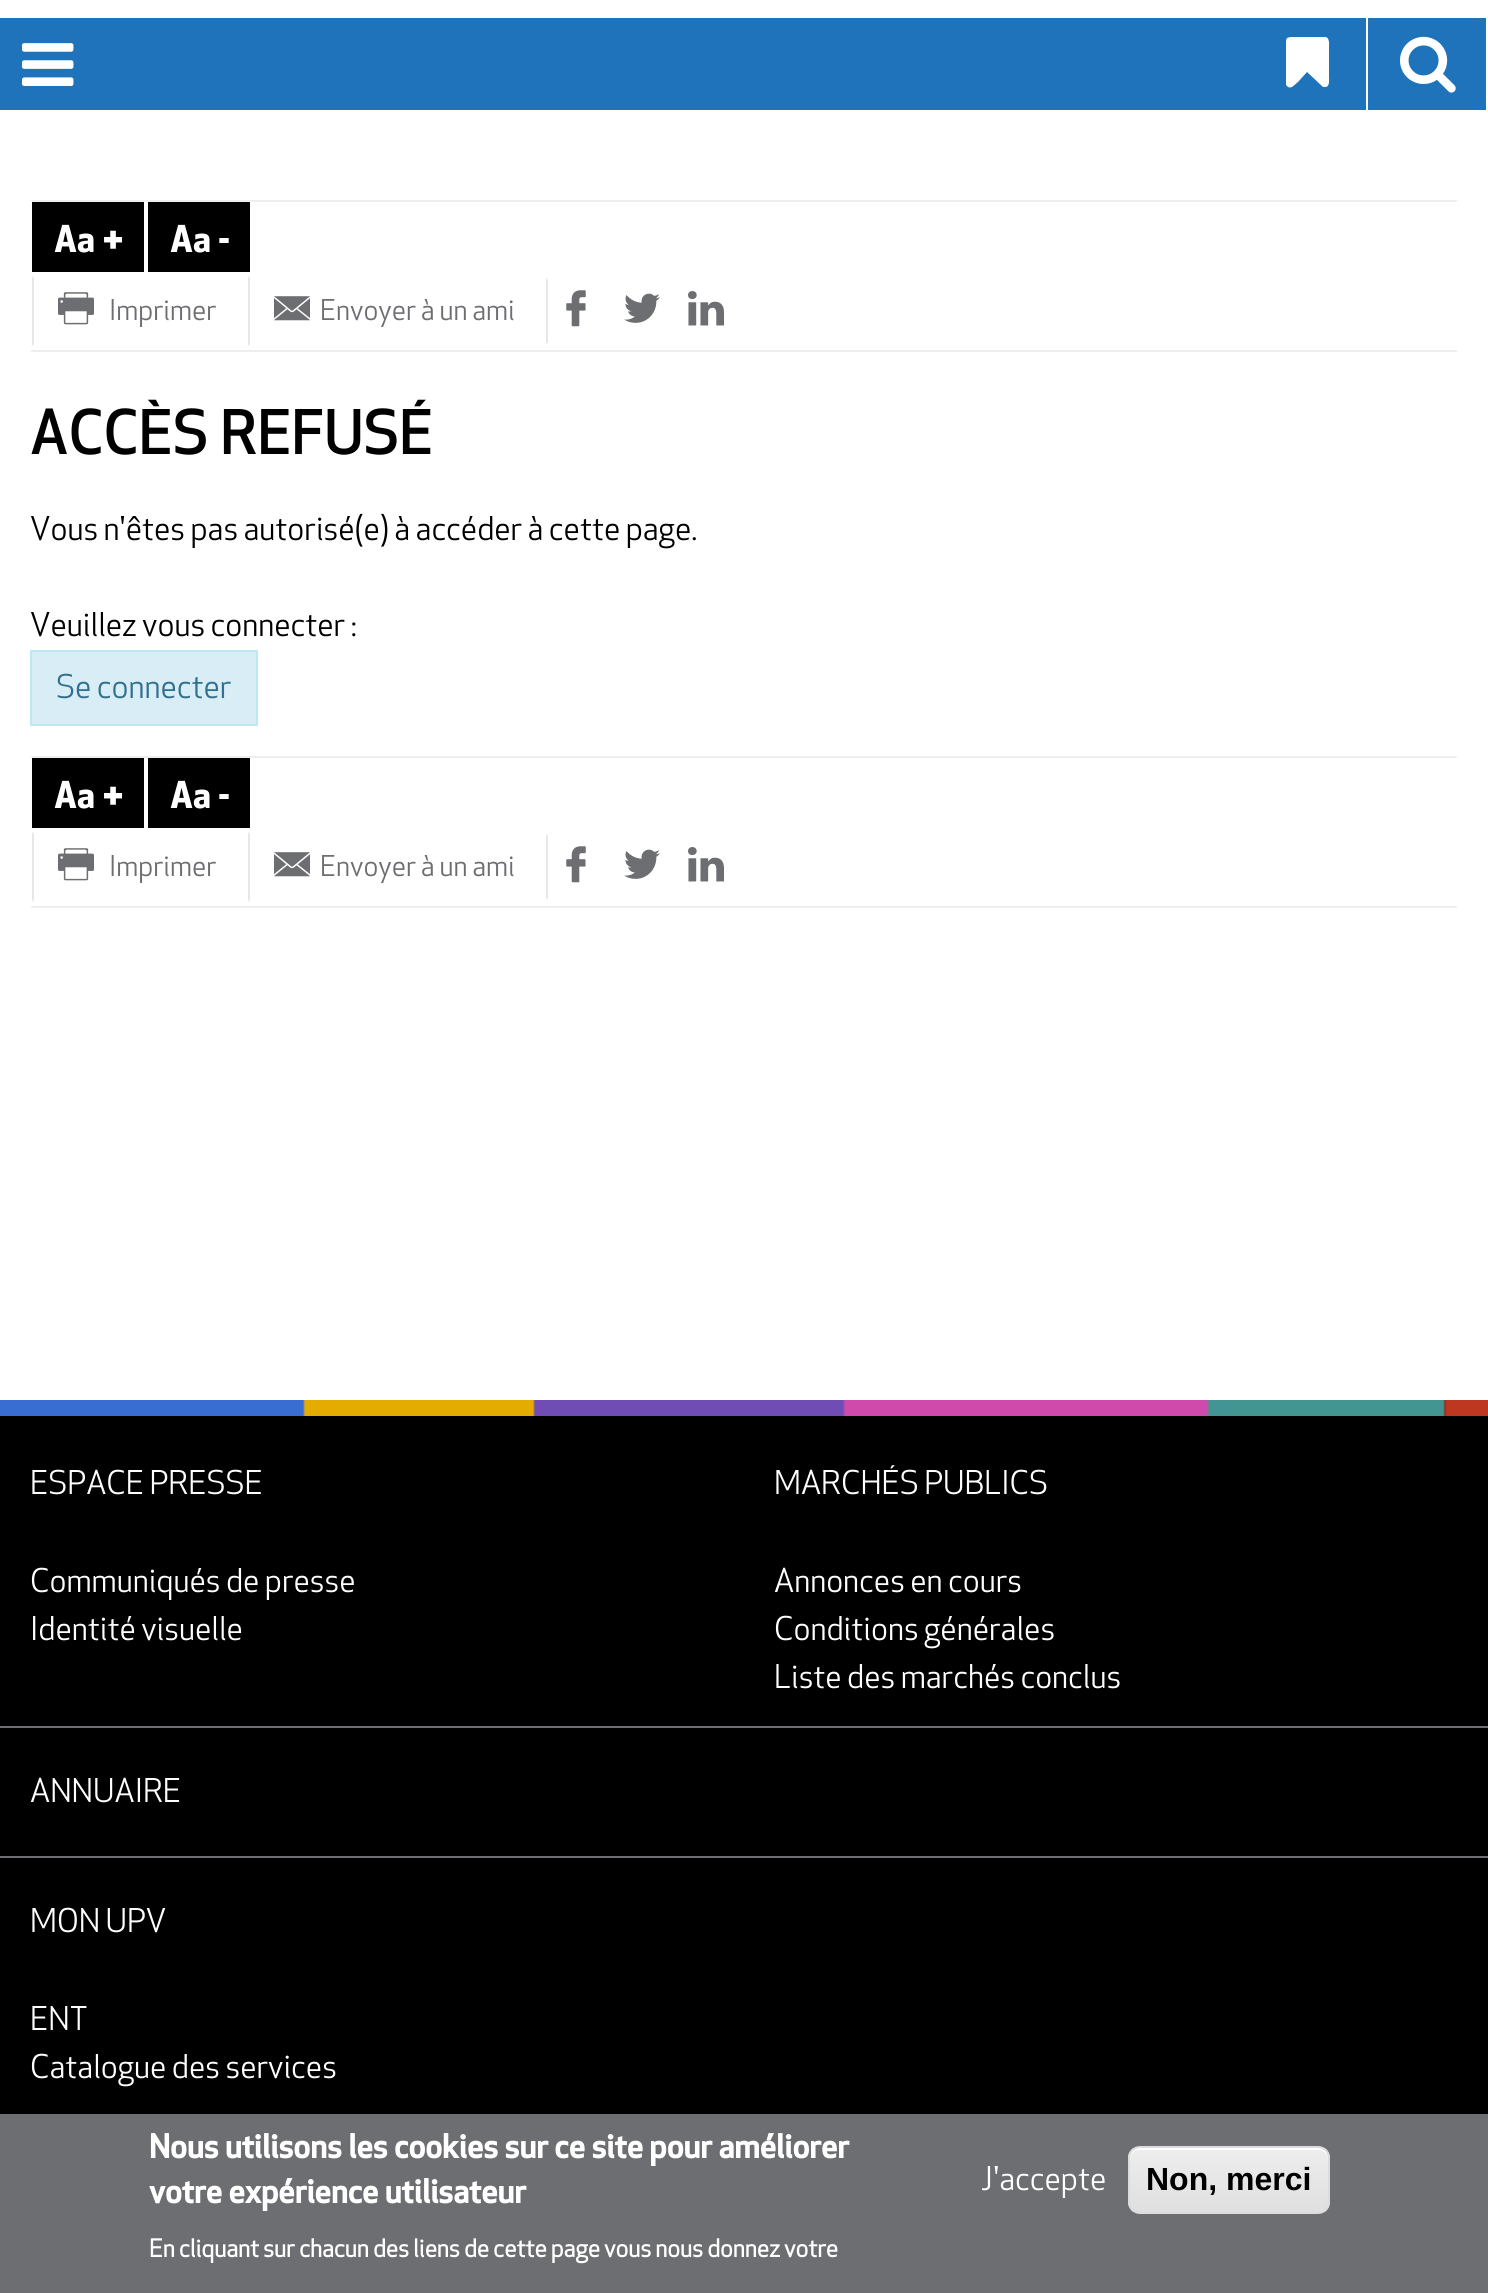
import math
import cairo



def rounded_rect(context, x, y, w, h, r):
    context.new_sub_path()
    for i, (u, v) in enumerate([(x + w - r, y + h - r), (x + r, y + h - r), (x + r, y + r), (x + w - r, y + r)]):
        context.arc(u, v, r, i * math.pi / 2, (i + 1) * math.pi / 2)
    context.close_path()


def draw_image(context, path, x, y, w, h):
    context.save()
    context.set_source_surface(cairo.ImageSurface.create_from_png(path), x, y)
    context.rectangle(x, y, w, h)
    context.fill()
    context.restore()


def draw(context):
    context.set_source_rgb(1, 1, 1)
    context.paint()
    context.set_source_rgb(31 / 255, 115 / 255, 186 / 255)
    context.rectangle(0, 18, 1486, 92)
    context.fill()
    draw_image(context, "images/1.png", 22, 43, 52, 43)
    context.set_source_rgb(1, 1, 1)
    context.rectangle(1366, 18, 2, 92)
    context.fill()
    context.new_path()
    context.move_to(1325, 37)
    context.curve_to(1330, 37, 1329, 45, 1329, 48)
    context.line_to(1329, 77)
    context.curve_to(1329, 79, 1330, 86, 1326, 87)
    context.line_to(1323, 87)
    context.line_to(1307, 72)
    context.line_to(1298, 82)
    context.curve_to(1295, 84, 1292, 89, 1288, 87)
    context.line_to(1286, 85)
    context.line_to(1286, 48)
    context.curve_to(1286, 37, 1285, 37, 1296, 37)
    context.close_path()
    context.fill()
    draw_image(context, "images/2.png", 1400, 36, 56, 57)
    context.set_source_rgb(238 / 255, 238 / 255, 238 / 255)
    context.new_path()
    context.move_to(30, 200)
    context.line_to(1458, 200)
    context.line_to(1456, 202)
    context.line_to(32, 202)
    context.close_path()
    context.fill()
    context.new_path()
    context.move_to(1458, 352)
    context.line_to(30, 352)
    context.line_to(32, 350)
    context.line_to(1456, 350)
    context.close_path()
    context.fill()
    context.set_source_rgb(0, 0, 0)
    context.rectangle(32, 202, 112, 70)
    context.fill()
    context.rectangle(148, 202, 102, 70)
    context.fill()
    context.set_source_rgb(231 / 255, 231 / 255, 232 / 255)
    context.new_path()
    context.move_to(32, 346)
    context.line_to(32, 276)
    context.line_to(34, 278)
    context.line_to(34, 344)
    context.close_path()
    context.fill()
    draw_image(context, "images/3.png", 58, 292, 36, 33)
    context.new_path()
    context.move_to(248, 346)
    context.line_to(248, 276)
    context.line_to(250, 278)
    context.line_to(250, 344)
    context.close_path()
    context.fill()
    draw_image(context, "images/4.png", 274, 296, 36, 25)
    context.new_path()
    context.move_to(546, 344)
    context.line_to(546, 278)
    context.line_to(548, 280)
    context.line_to(548, 342)
    context.close_path()
    context.fill()
    draw_image(context, "images/5.png", 566, 290, 20, 37)
    draw_image(context, "images/6.png", 624, 293, 36, 30)
    draw_image(context, "images/7.png", 688, 291, 36, 35)
    context.set_source_rgb(217 / 255, 237 / 255, 247 / 255)
    context.rectangle(31, 651, 226, 74)
    context.fill_preserve()
    context.set_source_rgb(188 / 255, 232 / 255, 241 / 255)
    context.stroke()
    context.set_source_rgb(238 / 255, 238 / 255, 238 / 255)
    context.new_path()
    context.move_to(30, 756)
    context.line_to(1458, 756)
    context.line_to(1456, 758)
    context.line_to(32, 758)
    context.close_path()
    context.fill()
    context.new_path()
    context.move_to(1458, 908)
    context.line_to(30, 908)
    context.line_to(32, 906)
    context.line_to(1456, 906)
    context.close_path()
    context.fill()
    context.set_source_rgb(0, 0, 0)
    context.rectangle(32, 758, 112, 70)
    context.fill()
    context.rectangle(148, 758, 102, 70)
    context.fill()
    context.set_source_rgb(231 / 255, 231 / 255, 232 / 255)
    context.new_path()
    context.move_to(32, 902)
    context.line_to(32, 832)
    context.line_to(34, 834)
    context.line_to(34, 900)
    context.close_path()
    context.fill()
    draw_image(context, "images/3.png", 58, 848, 36, 33)
    context.new_path()
    context.move_to(248, 902)
    context.line_to(248, 832)
    context.line_to(250, 834)
    context.line_to(250, 900)
    context.close_path()
    context.fill()
    draw_image(context, "images/4.png", 274, 852, 36, 25)
    context.new_path()
    context.move_to(546, 900)
    context.line_to(546, 834)
    context.line_to(548, 836)
    context.line_to(548, 898)
    context.close_path()
    context.fill()
    draw_image(context, "images/5.png", 566, 846, 20, 37)
    draw_image(context, "images/6.png", 624, 849, 36, 30)
    draw_image(context, "images/7.png", 688, 847, 36, 35)
    context.set_source_rgb(0, 0, 0)
    context.rectangle(0, 1416, 1488, 698)
    context.fill()
    draw_image(context, "images/8.png", 0, 1400, 1488, 16)
    context.set_source_rgb(109 / 255, 110 / 255, 113 / 255)
    context.rectangle(0, 1726, 1488, 2)
    context.fill()
    context.rectangle(0, 1856, 1488, 2)
    context.fill()
    context.rectangle(0, 2114, 1488, 179)
    context.fill()
    context.save()
    rounded_rect(context, 1128, 2146, 202, 68, 12)
    context.clip()
    gradient = cairo.LinearGradient(1229, 2148, 1229, 2212)
    gradient.add_color_stop_rgba(0.05, 237 / 255, 237 / 255, 237 / 255, 1)
    gradient.add_color_stop_rgba(1, 223 / 255, 223 / 255, 223 / 255, 1)
    context.set_source(gradient)
    context.rectangle(1128, 2148, 202, 64)
    context.fill()
    context.restore()
    context.set_source_rgb(1, 1, 1)
    context.new_path()
    context.move_to(1140, 2150)
    context.line_to(1318, 2150)
    context.curve_to(1324, 2150, 1328, 2154, 1328, 2160)
    context.line_to(1328, 2158)
    context.curve_to(1328, 2152, 1324, 2148, 1318, 2148)
    context.line_to(1140, 2148)
    context.curve_to(1134, 2148, 1130, 2152, 1130, 2158)
    context.line_to(1130, 2160)
    context.curve_to(1130, 2154, 1134, 2150, 1140, 2150)
    context.close_path()
    context.fill()
    rounded_rect(context, 1129, 2147, 200, 66, 11)
    context.set_source_rgb(220 / 255, 220 / 255, 220 / 255)
    context.stroke()
    context.select_font_face("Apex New", cairo.FontSlant.NORMAL, cairo.FontWeight.BOLD)
    context.set_font_size(36)
    context.set_source_rgb(1, 1, 1)
    context.move_to(54, 252)
    context.show_text("Aa +")
    context.move_to(170, 252)
    context.show_text("Aa -")
    context.select_font_face("Apex New")
    context.set_font_size(28)
    context.set_source_rgb(109 / 255, 110 / 255, 113 / 255)
    context.move_to(109, 320)
    context.show_text("Imprimer")
    context.move_to(320, 320)
    context.show_text("Envoyer à un ami")
    context.select_font_face("Apex New Medium")
    context.set_font_size(60)
    context.set_source_rgb(0, 0, 0)
    context.move_to(30, 454)
    context.show_text("ACCÈS REFUSÉ")
    context.select_font_face("Apex New")
    context.set_font_size(32)
    context.move_to(30, 540)
    context.show_text("Vous n'êtes pas autorisé(e) à accéder à cette page.")
    context.move_to(30, 636)
    context.show_text("Veuillez vous connecter :")
    context.set_source_rgb(49 / 255, 112 / 255, 143 / 255)
    context.move_to(56, 698)
    context.show_text("Se connecter")
    context.select_font_face("Apex New", cairo.FontSlant.NORMAL, cairo.FontWeight.BOLD)
    context.set_font_size(36)
    context.set_source_rgb(1, 1, 1)
    context.move_to(54, 808)
    context.show_text("Aa +")
    context.move_to(170, 808)
    context.show_text("Aa -")
    context.select_font_face("Apex New")
    context.set_font_size(28)
    context.set_source_rgb(109 / 255, 110 / 255, 113 / 255)
    context.move_to(109, 876)
    context.show_text("Imprimer")
    context.move_to(320, 876)
    context.show_text("Envoyer à un ami")
    context.set_font_size(32)
    context.set_source_rgb(1, 1, 1)
    context.move_to(30, 1494)
    context.show_text("ESPACE PRESSE")
    context.move_to(30, 1592)
    context.show_text("Communiqués de presse")
    context.move_to(30, 1640)
    context.show_text("Identité visuelle")
    context.move_to(774, 1494)
    context.show_text("MARCHÉS PUBLICS")
    context.move_to(774, 1592)
    context.show_text("Annonces en cours")
    context.move_to(774, 1640)
    context.show_text("Conditions générales")
    context.move_to(774, 1688)
    context.show_text("Liste des marchés conclus")
    context.move_to(30, 1802)
    context.show_text("ANNUAIRE")
    context.move_to(30, 1932)
    context.show_text("MON UPV")
    context.move_to(30, 2030)
    context.show_text("ENT")
    context.move_to(30, 2078)
    context.show_text("Catalogue des services")
    context.select_font_face("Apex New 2", cairo.FontSlant.NORMAL, cairo.FontWeight.BOLD)
    context.move_to(149, 2158)
    context.show_text("Nous utilisons les cookies sur ce site pour améliorer")
    context.move_to(149, 2203)
    context.show_text("votre expérience utilisateur")
    context.select_font_face("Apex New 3", cairo.FontSlant.NORMAL, cairo.FontWeight.BOLD)
    context.set_font_size(24)
    context.move_to(149, 2257)
    context.show_text("En cliquant sur chacun des liens de cette page vous nous donnez votre")
    context.select_font_face("Apex New")
    context.set_font_size(32)
    context.move_to(981, 2190)
    context.show_text("J'accepte")
    context.select_font_face("Liberation Sans", cairo.FontSlant.NORMAL, cairo.FontWeight.BOLD)
    context.set_source_rgb(0, 0, 0)
    context.move_to(1146, 2190)
    context.show_text("Non, merci")


surface = cairo.ImageSurface(cairo.Format.RGB24, 1488, 2293)
context = cairo.Context(surface)
options = cairo.FontOptions()
options.set_hint_metrics(cairo.HintMetrics.OFF)
options.set_hint_style(cairo.HintStyle.NONE)
context.set_font_options(options)
context.set_miter_limit(4)
draw(context)
surface.write_to_png("out.png")
